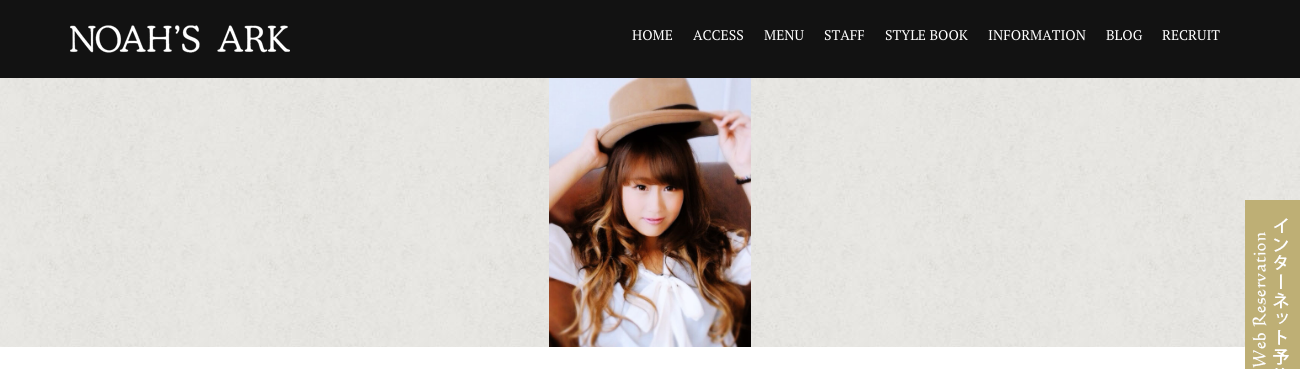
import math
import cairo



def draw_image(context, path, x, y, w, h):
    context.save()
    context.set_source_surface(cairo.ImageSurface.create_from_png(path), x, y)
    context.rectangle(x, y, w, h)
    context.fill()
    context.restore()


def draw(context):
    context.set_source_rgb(1, 1, 1)
    context.paint()
    context.set_source_rgb(18 / 255, 18 / 255, 18 / 255)
    context.rectangle(0, 0, 1300, 78)
    context.fill()
    draw_image(context, "images/1.png", 70, 25, 220, 28)
    draw_image(context, "images/3.png", 0, 78, 1300, 269)
    draw_image(context, "images/2.png", 1245, 200, 55, 169)
    draw_image(context, "images/4.png", 549, 78, 202, 269)
    context.select_font_face("PT Serif")
    context.set_font_size(14)
    context.set_source_rgb(1, 1, 1)
    context.move_to(632, 40)
    context.show_text("HOME")
    context.move_to(693, 40)
    context.show_text("ACCESS")
    context.move_to(764, 40)
    context.show_text("MENU")
    context.move_to(824, 40)
    context.show_text("STAFF")
    context.move_to(885, 40)
    context.show_text("STYLE BOOK")
    context.move_to(988, 40)
    context.show_text("INFORMATION")
    context.move_to(1106, 40)
    context.show_text("BLOG")
    context.move_to(1162, 40)
    context.show_text("RECRUIT")


surface = cairo.ImageSurface(cairo.Format.RGB24, 1300, 369)
context = cairo.Context(surface)
options = cairo.FontOptions()
options.set_hint_metrics(cairo.HintMetrics.OFF)
options.set_hint_style(cairo.HintStyle.NONE)
context.set_font_options(options)
context.set_miter_limit(4)
draw(context)
surface.write_to_png("out.png")
